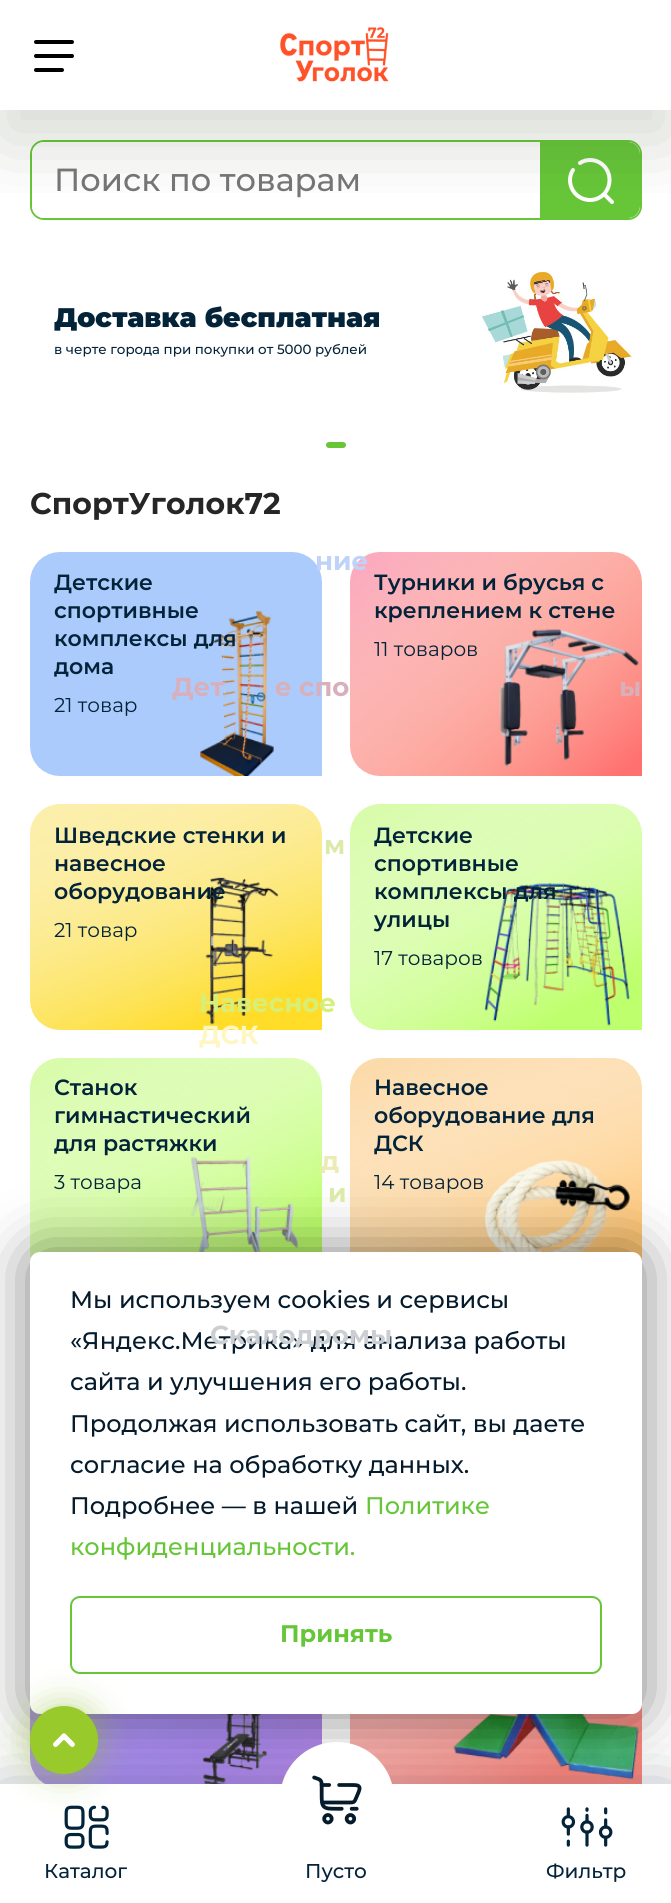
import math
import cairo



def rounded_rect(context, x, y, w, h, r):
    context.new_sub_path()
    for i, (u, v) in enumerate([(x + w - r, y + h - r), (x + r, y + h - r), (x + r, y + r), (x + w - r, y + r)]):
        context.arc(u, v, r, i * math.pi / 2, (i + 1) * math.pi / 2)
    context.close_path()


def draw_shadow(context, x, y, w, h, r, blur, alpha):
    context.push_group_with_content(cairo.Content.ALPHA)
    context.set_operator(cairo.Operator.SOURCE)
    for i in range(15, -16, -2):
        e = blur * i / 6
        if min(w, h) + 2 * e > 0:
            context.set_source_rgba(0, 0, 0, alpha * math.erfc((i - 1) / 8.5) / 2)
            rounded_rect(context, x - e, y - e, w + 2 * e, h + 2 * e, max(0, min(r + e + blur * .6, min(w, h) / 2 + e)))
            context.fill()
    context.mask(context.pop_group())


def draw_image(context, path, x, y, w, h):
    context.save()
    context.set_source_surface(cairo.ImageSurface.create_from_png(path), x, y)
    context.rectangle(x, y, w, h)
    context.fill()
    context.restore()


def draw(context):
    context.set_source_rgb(1, 1, 1)
    context.paint()
    rounded_rect(context, 31, 141, 610, 78, 13)
    context.set_source_rgb(102 / 255, 198 / 255, 56 / 255)
    context.stroke()
    context.set_source_rgb(1, 1, 1)
    rounded_rect(context, 32, 142, 608, 76, 12)
    context.fill()
    context.set_source_rgb(102 / 255, 198 / 255, 56 / 255)
    context.new_path()
    context.move_to(540, 142)
    context.line_to(628, 142)
    context.curve_to(634.5, 142, 640, 147.5, 640, 154)
    context.line_to(640, 206)
    context.curve_to(640, 212.5, 634.5, 218, 628, 218)
    context.line_to(540, 218)
    context.close_path()
    context.fill()
    context.new_path()
    context.move_to(604.5, 194.5)
    context.line_to(612, 202)
    context.move_to(580, 163)
    context.curve_to(583, 161, 586.5, 160, 590, 160)
    context.curve_to(601, 160, 609.5, 169, 609.5, 180)
    context.curve_to(609.5, 191, 601, 200, 590, 200)
    context.curve_to(579, 200, 570, 191, 570, 180)
    context.curve_to(570, 176.5, 571, 173, 573, 170)
    context.set_source_rgb(1, 1, 1)
    context.set_line_width(4)
    context.set_line_cap(cairo.LineCap.ROUND)
    context.stroke()
    draw_image(context, "images/1.png", 482, 271, 151, 122)
    context.set_source_rgb(102 / 255, 198 / 255, 56 / 255)
    rounded_rect(context, 326, 442, 20, 6, 3)
    context.fill()
    draw_image(context, "images/2.png", 30, 552, 292, 224)
    draw_image(context, "images/3.png", 350, 552, 292, 224)
    draw_image(context, "images/4.png", 30, 804, 292, 226)
    draw_image(context, "images/5.png", 350, 804, 292, 226)
    draw_image(context, "images/6.png", 30, 1058, 292, 202)
    draw_image(context, "images/7.png", 350, 1058, 292, 204)
    draw_image(context, "images/8.png", 30, 1704, 292, 80)
    draw_image(context, "images/9.png", 350, 1704, 292, 80)
    context.save()
    context.rectangle(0, 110, 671, 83)
    context.clip()
    context.set_source_rgb(64 / 255, 81 / 255, 49 / 255)
    draw_shadow(context, 0, 30, 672, 110, 0, 40, 0.22)
    context.restore()
    context.set_source_rgb(0, 0, 0)
    rounded_rect(context, 34, 40, 40, 4, 2)
    context.fill()
    rounded_rect(context, 34, 54, 40, 4, 2)
    context.fill()
    rounded_rect(context, 34, 68, 30, 4, 2)
    context.fill()
    draw_image(context, "images/10.png", 279, 27, 110, 55)
    context.set_source_rgb(0, 0, 0)
    draw_shadow(context, 30, 1252, 612, 462, 10, 30, 0.5)
    context.set_source_rgb(1, 1, 1)
    rounded_rect(context, 30, 1252, 612, 462, 10)
    context.fill()
    rounded_rect(context, 71, 1597, 530, 76, 9)
    context.set_source_rgb(102 / 255, 198 / 255, 56 / 255)
    context.set_line_width(2)
    context.set_line_cap(cairo.LineCap.BUTT)
    context.stroke()
    context.set_source_rgb(142 / 255, 156 / 255, 184 / 255)
    draw_shadow(context, 0, 1814, 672, 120, 0, 33, 0.55)
    context.set_source_rgb(0, 0, 0)
    draw_shadow(context, 0, 1792, 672, 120, 0, 33, 0.25)
    context.set_source_rgb(1, 1, 1)
    context.rectangle(0, 1784, 671, 119)
    context.fill()
    draw_image(context, "images/12.png", 64, 1805, 45, 44)
    context.set_source_rgb(141 / 255, 185 / 255, 40 / 255)
    draw_shadow(context, 30, 1706, 68, 68, 34, 17, 0.5)
    context.set_source_rgb(152 / 255, 202 / 255, 43 / 255)
    context.arc(64, 1740, 34, 0, 2 * math.pi)
    context.fill()
    draw_image(context, "images/11.png", 53, 1733, 22, 14)
    context.set_source_rgb(1, 1, 1)
    context.arc(337, 1799, 54, 0, 2 * math.pi)
    context.fill_preserve()
    context.set_line_width(6)
    context.stroke()
    draw_image(context, "images/13.png", 312, 1775, 50, 50)
    draw_image(context, "images/14.png", 561, 1807, 52, 40)
    context.select_font_face("Montserrat Medium")
    context.set_font_size(32)
    context.set_source_rgb(117 / 255, 117 / 255, 117 / 255)
    context.move_to(54, 191)
    context.show_text("Поиск по товарам")
    context.select_font_face("Montserrat Black")
    context.set_font_size(26.9)
    context.set_source_rgb(3 / 255, 35 / 255, 57 / 255)
    context.move_to(54, 327)
    context.show_text("Доставка бесплатная")
    context.select_font_face("Montserrat Medium")
    context.set_font_size(13.4)
    context.move_to(54, 354)
    context.show_text("в черте города при покупки от 5000 рублей")
    context.select_font_face("Montserrat", cairo.FontSlant.NORMAL, cairo.FontWeight.BOLD)
    context.set_font_size(30)
    context.set_source_rgb(38 / 255, 38 / 255, 38 / 255)
    context.move_to(30, 514)
    context.show_text("СпортУголок72")
    context.select_font_face("Montserrat SemiBold")
    context.set_font_size(22)
    context.set_source_rgb(3 / 255, 35 / 255, 57 / 255)
    context.move_to(54, 590)
    context.show_text("Детские")
    context.move_to(54, 618)
    context.show_text("спортивные")
    context.move_to(54, 646)
    context.show_text("комплексы для")
    context.move_to(54, 674)
    context.show_text("дома")
    context.select_font_face("Montserrat")
    context.set_font_size(20)
    context.move_to(54, 712)
    context.show_text("21 товар")
    context.select_font_face("Montserrat SemiBold")
    context.set_font_size(22)
    context.move_to(374, 590)
    context.show_text("Турники и брусья с")
    context.move_to(374, 618)
    context.show_text("креплением к стене")
    context.select_font_face("Montserrat")
    context.set_font_size(20)
    context.move_to(374, 656)
    context.show_text("11 товаров")
    context.select_font_face("Montserrat SemiBold")
    context.set_font_size(22)
    context.move_to(54, 843)
    context.show_text("Шведские стенки и")
    context.move_to(54, 871)
    context.show_text("навесное")
    context.move_to(54, 899)
    context.show_text("оборудование")
    context.select_font_face("Montserrat")
    context.set_font_size(20)
    context.move_to(54, 937)
    context.show_text("21 товар")
    context.select_font_face("Montserrat SemiBold")
    context.set_font_size(22)
    context.move_to(374, 843)
    context.show_text("Детские")
    context.move_to(374, 871)
    context.show_text("спортивные")
    context.move_to(374, 899)
    context.show_text("комплексы для")
    context.move_to(374, 927)
    context.show_text("улицы")
    context.select_font_face("Montserrat")
    context.set_font_size(20)
    context.move_to(374, 965)
    context.show_text("17 товаров")
    context.select_font_face("Montserrat SemiBold")
    context.set_font_size(22)
    context.move_to(54, 1095)
    context.show_text("Станок")
    context.move_to(54, 1123)
    context.show_text("гимнастический")
    context.move_to(54, 1151)
    context.show_text("для растяжки")
    context.select_font_face("Montserrat")
    context.set_font_size(20)
    context.move_to(54, 1189)
    context.show_text("3 товара")
    context.select_font_face("Montserrat SemiBold")
    context.set_font_size(22)
    context.move_to(374, 1095)
    context.show_text("Навесное")
    context.move_to(374, 1123)
    context.show_text("оборудование для")
    context.move_to(374, 1151)
    context.show_text("ДСК")
    context.select_font_face("Montserrat")
    context.set_font_size(20)
    context.move_to(374, 1189)
    context.show_text("14 товаров")
    context.select_font_face("Montserrat", cairo.FontSlant.NORMAL, cairo.FontWeight.BOLD)
    context.set_font_size(26)
    context.set_source_rgb(191 / 255, 211 / 255, 249 / 255)
    context.move_to(315, 570)
    context.show_text("ние")
    context.set_source_rgb(216 / 255, 176 / 255, 187 / 255)
    context.move_to(172, 696)
    context.show_text("Дет")
    context.move_to(275, 696)
    context.show_text("е спо")
    context.move_to(619, 696)
    context.show_text("ы")
    context.set_source_rgb(219 / 255, 234 / 255, 168 / 255)
    context.move_to(324, 854)
    context.show_text("м")
    context.set_source_rgb(215 / 255, 238 / 255, 120 / 255)
    context.move_to(199, 1012)
    context.show_text("Навесное")
    context.set_source_rgb(1, 246 / 255, 196 / 255)
    context.move_to(199, 1044)
    context.show_text("ДСК")
    context.set_source_rgb(236 / 255, 235 / 255, 182 / 255)
    context.move_to(321, 1170)
    context.show_text("д")
    context.set_source_rgb(219 / 255, 234 / 255, 168 / 255)
    context.move_to(328, 1202)
    context.show_text("и")
    context.select_font_face("Montserrat Medium")
    context.set_font_size(24)
    context.set_source_rgb(5 / 255, 27 / 255, 43 / 255)
    context.move_to(70, 1308)
    context.show_text("Мы используем cookies и сервисы")
    context.move_to(70, 1349)
    context.show_text("«Яндекс.Метрика» для анализа работы")
    context.select_font_face("Montserrat", cairo.FontSlant.NORMAL, cairo.FontWeight.BOLD)
    context.set_font_size(26)
    context.set_source_rgb(203 / 255, 207 / 255, 211 / 255)
    context.move_to(210, 1344)
    context.show_text("Cкалодромы")
    context.select_font_face("Montserrat Medium")
    context.set_font_size(24)
    context.set_source_rgb(5 / 255, 27 / 255, 43 / 255)
    context.move_to(70, 1390)
    context.show_text("сайта и улучшения его работы.")
    context.move_to(70, 1432)
    context.show_text("Продолжая использовать сайт, вы даете")
    context.move_to(70, 1473)
    context.show_text("согласие на обработку данных.")
    context.move_to(70, 1514)
    context.show_text("Подробнее — в нашей")
    context.set_source_rgb(102 / 255, 198 / 255, 56 / 255)
    context.move_to(365, 1514)
    context.show_text("Политике")
    context.move_to(70, 1555)
    context.show_text("конфиденциальности.")
    context.select_font_face("Montserrat", cairo.FontSlant.NORMAL, cairo.FontWeight.BOLD)
    context.move_to(280, 1642)
    context.show_text("Принять")
    context.select_font_face("Montserrat Medium")
    context.set_font_size(20)
    context.set_source_rgb(3 / 255, 35 / 255, 57 / 255)
    context.move_to(44, 1878)
    context.show_text("Каталог")
    context.move_to(305, 1878)
    context.show_text("Пусто")
    context.move_to(546, 1878)
    context.show_text("Фильтр")


surface = cairo.ImageSurface(cairo.Format.RGB24, 671, 1903)
context = cairo.Context(surface)
options = cairo.FontOptions()
options.set_hint_metrics(cairo.HintMetrics.OFF)
options.set_hint_style(cairo.HintStyle.NONE)
context.set_font_options(options)
context.set_miter_limit(4)
draw(context)
surface.write_to_png("out.png")
